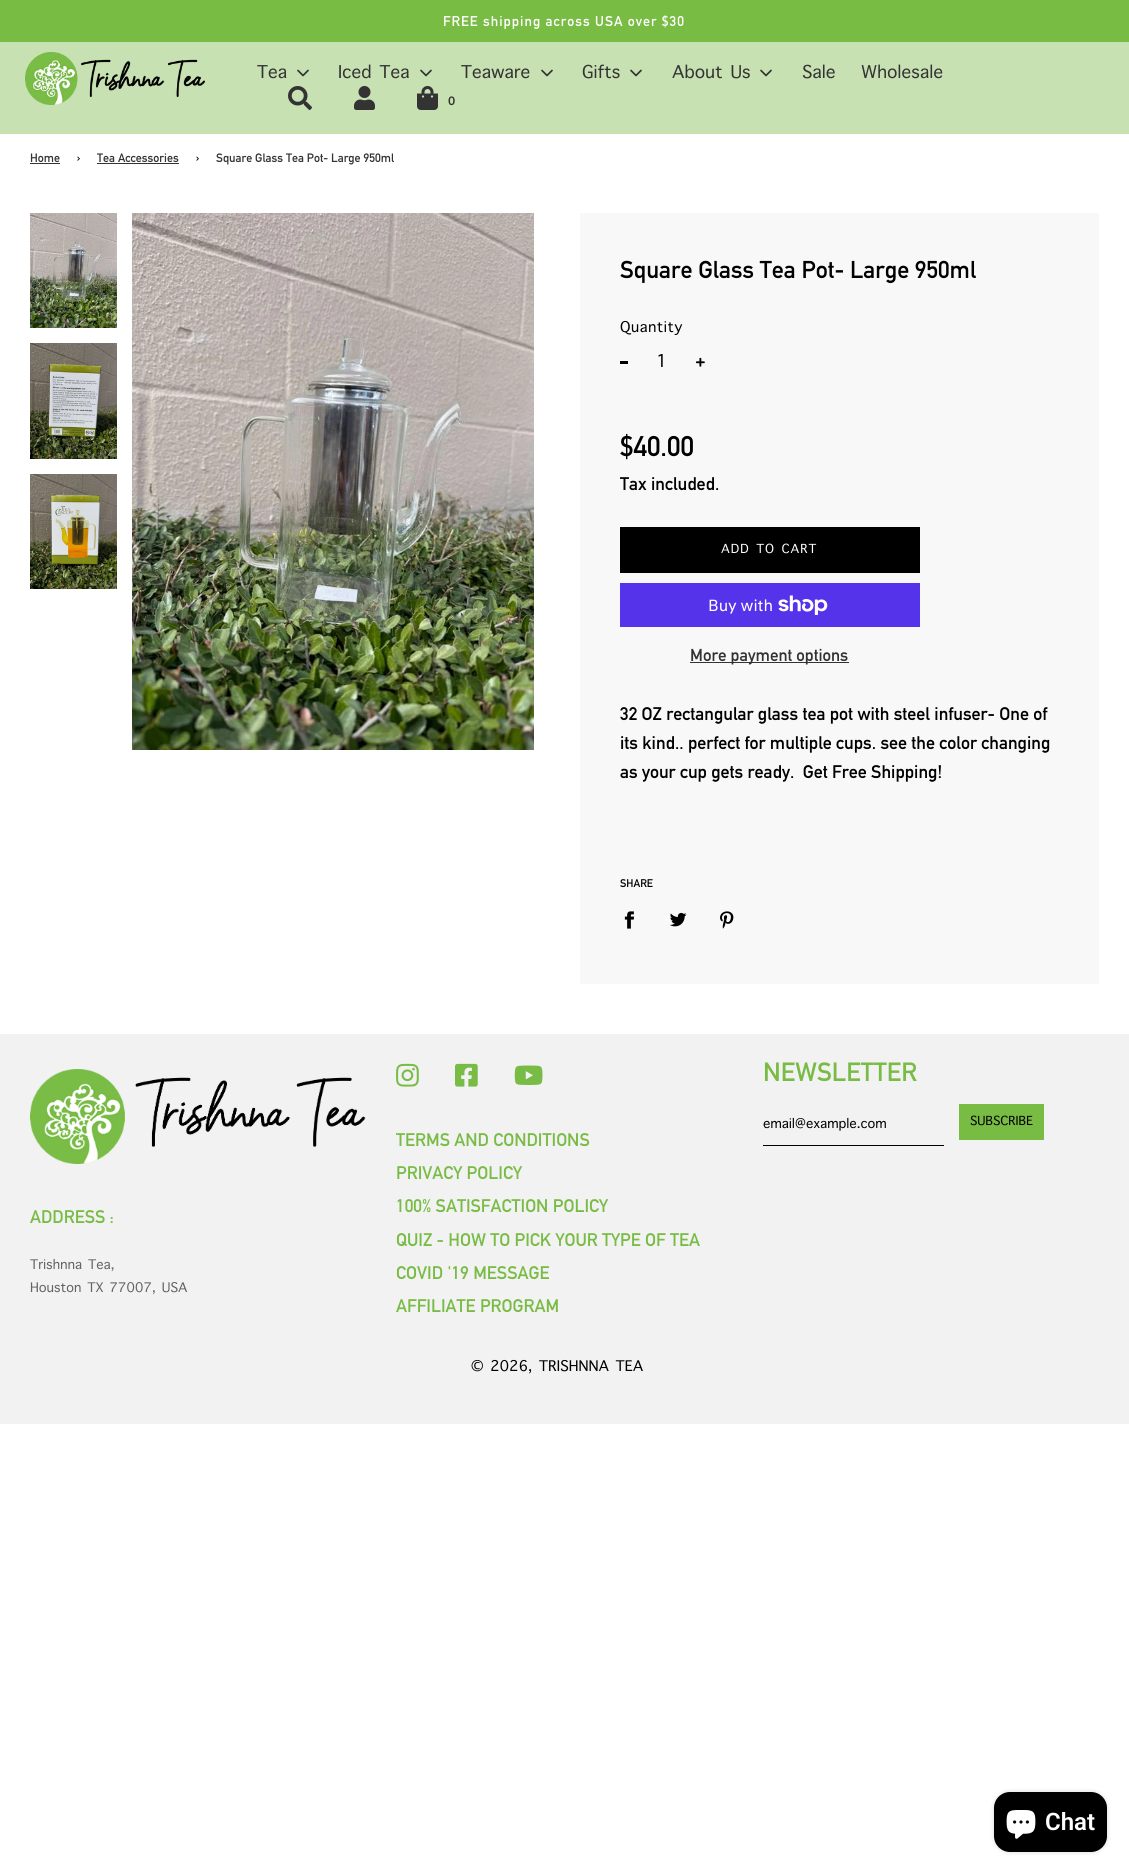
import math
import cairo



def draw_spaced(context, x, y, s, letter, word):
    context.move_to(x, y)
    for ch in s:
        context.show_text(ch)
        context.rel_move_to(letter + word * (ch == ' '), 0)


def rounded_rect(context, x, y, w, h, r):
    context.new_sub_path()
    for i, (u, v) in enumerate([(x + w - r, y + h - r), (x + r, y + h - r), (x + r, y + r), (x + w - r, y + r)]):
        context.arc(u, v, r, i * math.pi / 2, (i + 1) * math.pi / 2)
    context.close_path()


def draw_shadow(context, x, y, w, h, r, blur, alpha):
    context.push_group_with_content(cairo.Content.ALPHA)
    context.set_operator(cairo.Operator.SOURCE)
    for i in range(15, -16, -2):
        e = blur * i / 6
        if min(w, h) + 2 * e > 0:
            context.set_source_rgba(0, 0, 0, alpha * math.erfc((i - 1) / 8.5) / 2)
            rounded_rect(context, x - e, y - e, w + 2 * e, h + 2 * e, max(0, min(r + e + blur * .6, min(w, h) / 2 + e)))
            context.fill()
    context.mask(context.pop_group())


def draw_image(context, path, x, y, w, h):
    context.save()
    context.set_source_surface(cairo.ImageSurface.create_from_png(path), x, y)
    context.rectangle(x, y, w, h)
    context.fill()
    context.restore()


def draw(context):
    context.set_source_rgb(1, 1, 1)
    context.paint()
    context.set_source_rgb(120 / 255, 188 / 255, 68 / 255)
    context.rectangle(0, 0, 1129, 42)
    context.fill()
    context.set_source_rgb(199 / 255, 225 / 255, 178 / 255)
    context.rectangle(0, 42, 1129, 92)
    context.fill()
    draw_image(context, "images/1.png", 25, 52, 180, 53)
    draw_image(context, "images/2.png", 257, 65, 30, 14)
    context.new_path()
    context.move_to(298, 70.5)
    context.line_to(303, 75.5)
    context.line_to(308, 70.5)
    context.set_source_rgb(51 / 255, 51 / 255, 51 / 255)
    context.set_line_width(1.7)
    context.set_line_cap(cairo.LineCap.ROUND)
    context.set_line_join(cairo.LineJoin.ROUND)
    context.stroke()
    draw_image(context, "images/3.png", 339, 64, 70, 15)
    context.new_path()
    context.move_to(421, 70.5)
    context.line_to(426, 75.5)
    context.line_to(431, 70.5)
    context.stroke()
    draw_image(context, "images/4.png", 461, 65, 69, 14)
    context.new_path()
    context.move_to(542, 70.5)
    context.line_to(547, 75.5)
    context.line_to(552, 70.5)
    context.stroke()
    draw_image(context, "images/5.png", 582, 64, 38, 15)
    context.new_path()
    context.move_to(631, 70.5)
    context.line_to(636, 75.5)
    context.line_to(641, 70.5)
    context.stroke()
    draw_image(context, "images/6.png", 672, 64, 78, 15)
    context.new_path()
    context.move_to(761, 70.5)
    context.line_to(766, 75.5)
    context.line_to(771, 70.5)
    context.stroke()
    draw_image(context, "images/7.png", 802, 64, 33, 15)
    draw_image(context, "images/8.png", 861, 64, 82, 15)
    draw_image(context, "images/9.png", 288, 86, 24, 24)
    draw_image(context, "images/10.png", 354, 86, 21, 24)
    draw_image(context, "images/11.png", 417, 86, 21, 24)
    context.rectangle(30, 163, 30, 1)
    context.fill()
    context.rectangle(97, 163, 82, 1)
    context.fill()
    draw_image(context, "images/12.png", 30, 213, 87, 115)
    draw_image(context, "images/13.png", 30, 343, 87, 116)
    draw_image(context, "images/14.png", 30, 474, 87, 115)
    draw_image(context, "images/15.png", 132, 213, 402, 537)
    context.set_source_rgb(248 / 255, 248 / 255, 248 / 255)
    context.rectangle(580, 213, 519, 771)
    context.fill()
    draw_image(context, "images/16.png", 620, 320, 63, 15)
    context.set_source_rgb(0, 0, 0)
    context.rectangle(620, 361, 8, 3)
    context.fill()
    draw_image(context, "images/17.png", 658, 354, 5, 13)
    draw_image(context, "images/18.png", 696, 357, 9, 10)
    context.rectangle(620, 527, 300, 46)
    context.fill()
    draw_image(context, "images/19.png", 721, 543, 96, 11)
    context.set_source_rgb(84 / 255, 51 / 255, 235 / 255)
    context.rectangle(620, 583, 300, 44)
    context.fill()
    draw_image(context, "images/20.png", 778, 595, 50, 20)
    context.set_source_rgb(51 / 255, 51 / 255, 51 / 255)
    context.rectangle(690, 662, 159, 1)
    context.fill()
    draw_image(context, "images/21.png", 624, 911, 11, 18)
    draw_image(context, "images/22.png", 670, 912, 17, 15)
    draw_image(context, "images/23.png", 720, 911, 14, 18)
    context.set_source_rgb(242 / 255, 242 / 255, 242 / 255)
    context.rectangle(0, 1034, 1129, 390)
    context.fill()
    context.set_source_rgb(0, 0, 0)
    context.rectangle(763, 1145, 181, 1)
    context.fill()
    draw_image(context, "images/24.png", 763, 1117, 123, 14)
    context.set_source_rgb(120 / 255, 188 / 255, 68 / 255)
    context.rectangle(959, 1104, 85, 36)
    context.fill()
    draw_image(context, "images/25.png", 970, 1115, 63, 11)
    draw_image(context, "images/26.png", 30, 1069, 336, 95)
    draw_image(context, "images/27.png", 30, 1258, 84, 14)
    draw_image(context, "images/28.png", 30, 1282, 158, 13)
    draw_image(context, "images/29.png", 396, 1063, 23, 24)
    draw_image(context, "images/30.png", 455, 1063, 23, 24)
    draw_image(context, "images/31.png", 514, 1065, 29, 20)
    draw_image(context, "images/32.png", 471, 1359, 172, 15)
    context.set_source_rgb(0, 0, 0)
    draw_shadow(context, 994, 1792, 113, 60, 16, 2.5, 0.15)
    context.set_source_rgb(0, 0, 0)
    rounded_rect(context, 994, 1792, 113, 60, 16)
    context.fill()
    draw_image(context, "images/33.png", 1006, 1810, 30, 29)
    context.select_font_face("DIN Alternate", cairo.FontSlant.NORMAL, cairo.FontWeight.BOLD)
    context.set_font_size(14)
    context.set_source_rgb(1, 1, 1)
    draw_spaced(context, 443, 26, "FREE shipping across USA over $30", 1, 0)
    context.select_font_face("Nunito", cairo.FontSlant.NORMAL, cairo.FontWeight.BOLD)
    context.set_font_size(12)
    context.set_source_rgb(51 / 255, 51 / 255, 51 / 255)
    context.move_to(448, 105)
    context.show_text("0")
    context.select_font_face("DIN Alternate", cairo.FontSlant.NORMAL, cairo.FontWeight.BOLD)
    context.move_to(30, 162)
    context.show_text("Home")
    context.set_source_rgb(0, 0, 0)
    context.move_to(77, 162)
    context.show_text("›")
    context.set_source_rgb(51 / 255, 51 / 255, 51 / 255)
    context.move_to(97, 162)
    context.show_text("Tea Accessories")
    context.set_source_rgb(0, 0, 0)
    context.move_to(196, 162)
    context.show_text("›")
    context.set_source_rgb(51 / 255, 51 / 255, 51 / 255)
    context.move_to(216, 162)
    context.show_text("Square Glass Tea Pot- Large 950ml")
    context.set_font_size(24)
    context.set_source_rgb(0, 0, 0)
    context.move_to(620, 278)
    context.show_text("Square Glass Tea Pot- Large 950ml")
    context.set_font_size(28)
    context.move_to(620, 456)
    context.show_text("$40.00")
    context.set_font_size(18)
    context.move_to(620, 490)
    context.show_text("Tax included.")
    context.select_font_face("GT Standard")
    context.set_font_size(16)
    context.set_source_rgb(1, 1, 1)
    context.move_to(708, 611)
    context.show_text("Buy with")
    context.select_font_face("DIN Alternate", cairo.FontSlant.NORMAL, cairo.FontWeight.BOLD)
    context.set_font_size(17)
    context.set_source_rgb(51 / 255, 51 / 255, 51 / 255)
    context.move_to(690, 661)
    context.show_text("More payment options")
    context.set_font_size(18)
    context.set_source_rgb(0, 0, 0)
    context.move_to(620, 720)
    context.show_text("32 OZ rectangular glass tea pot with steel infuser- One of")
    context.move_to(620, 749)
    context.show_text("its kind.. perfect for multiple cups. see the color changing")
    context.move_to(620, 778)
    context.show_text("as your cup gets ready.  Get Free Shipping!")
    context.set_font_size(11)
    context.move_to(620, 887)
    context.show_text("SHARE")
    context.set_font_size(26)
    context.set_source_rgb(121 / 255, 188 / 255, 69 / 255)
    context.move_to(763, 1081)
    context.show_text("NEWSLETTER")
    context.set_font_size(18)
    context.move_to(30, 1223)
    context.show_text("ADDRESS :")
    context.move_to(396, 1146)
    context.show_text("TERMS AND CONDITIONS")
    context.move_to(396, 1179)
    context.show_text("PRIVACY POLICY")
    context.move_to(396, 1212)
    context.show_text("100% SATISFACTION POLICY")
    context.move_to(396, 1246)
    context.show_text("QUIZ - HOW TO PICK YOUR TYPE OF TEA")
    context.move_to(396, 1279)
    context.show_text("COVID '19 MESSAGE")
    context.move_to(396, 1312)
    context.show_text("AFFILIATE PROGRAM")
    context.select_font_face("Roboto SemiBold")
    context.set_font_size(24)
    context.set_source_rgb(1, 1, 1)
    context.move_to(1045, 1830)
    context.show_text("Chat")


surface = cairo.ImageSurface(cairo.Format.RGB24, 1129, 1873)
context = cairo.Context(surface)
options = cairo.FontOptions()
options.set_hint_metrics(cairo.HintMetrics.OFF)
options.set_hint_style(cairo.HintStyle.NONE)
context.set_font_options(options)
context.set_miter_limit(4)
draw(context)
surface.write_to_png("out.png")
